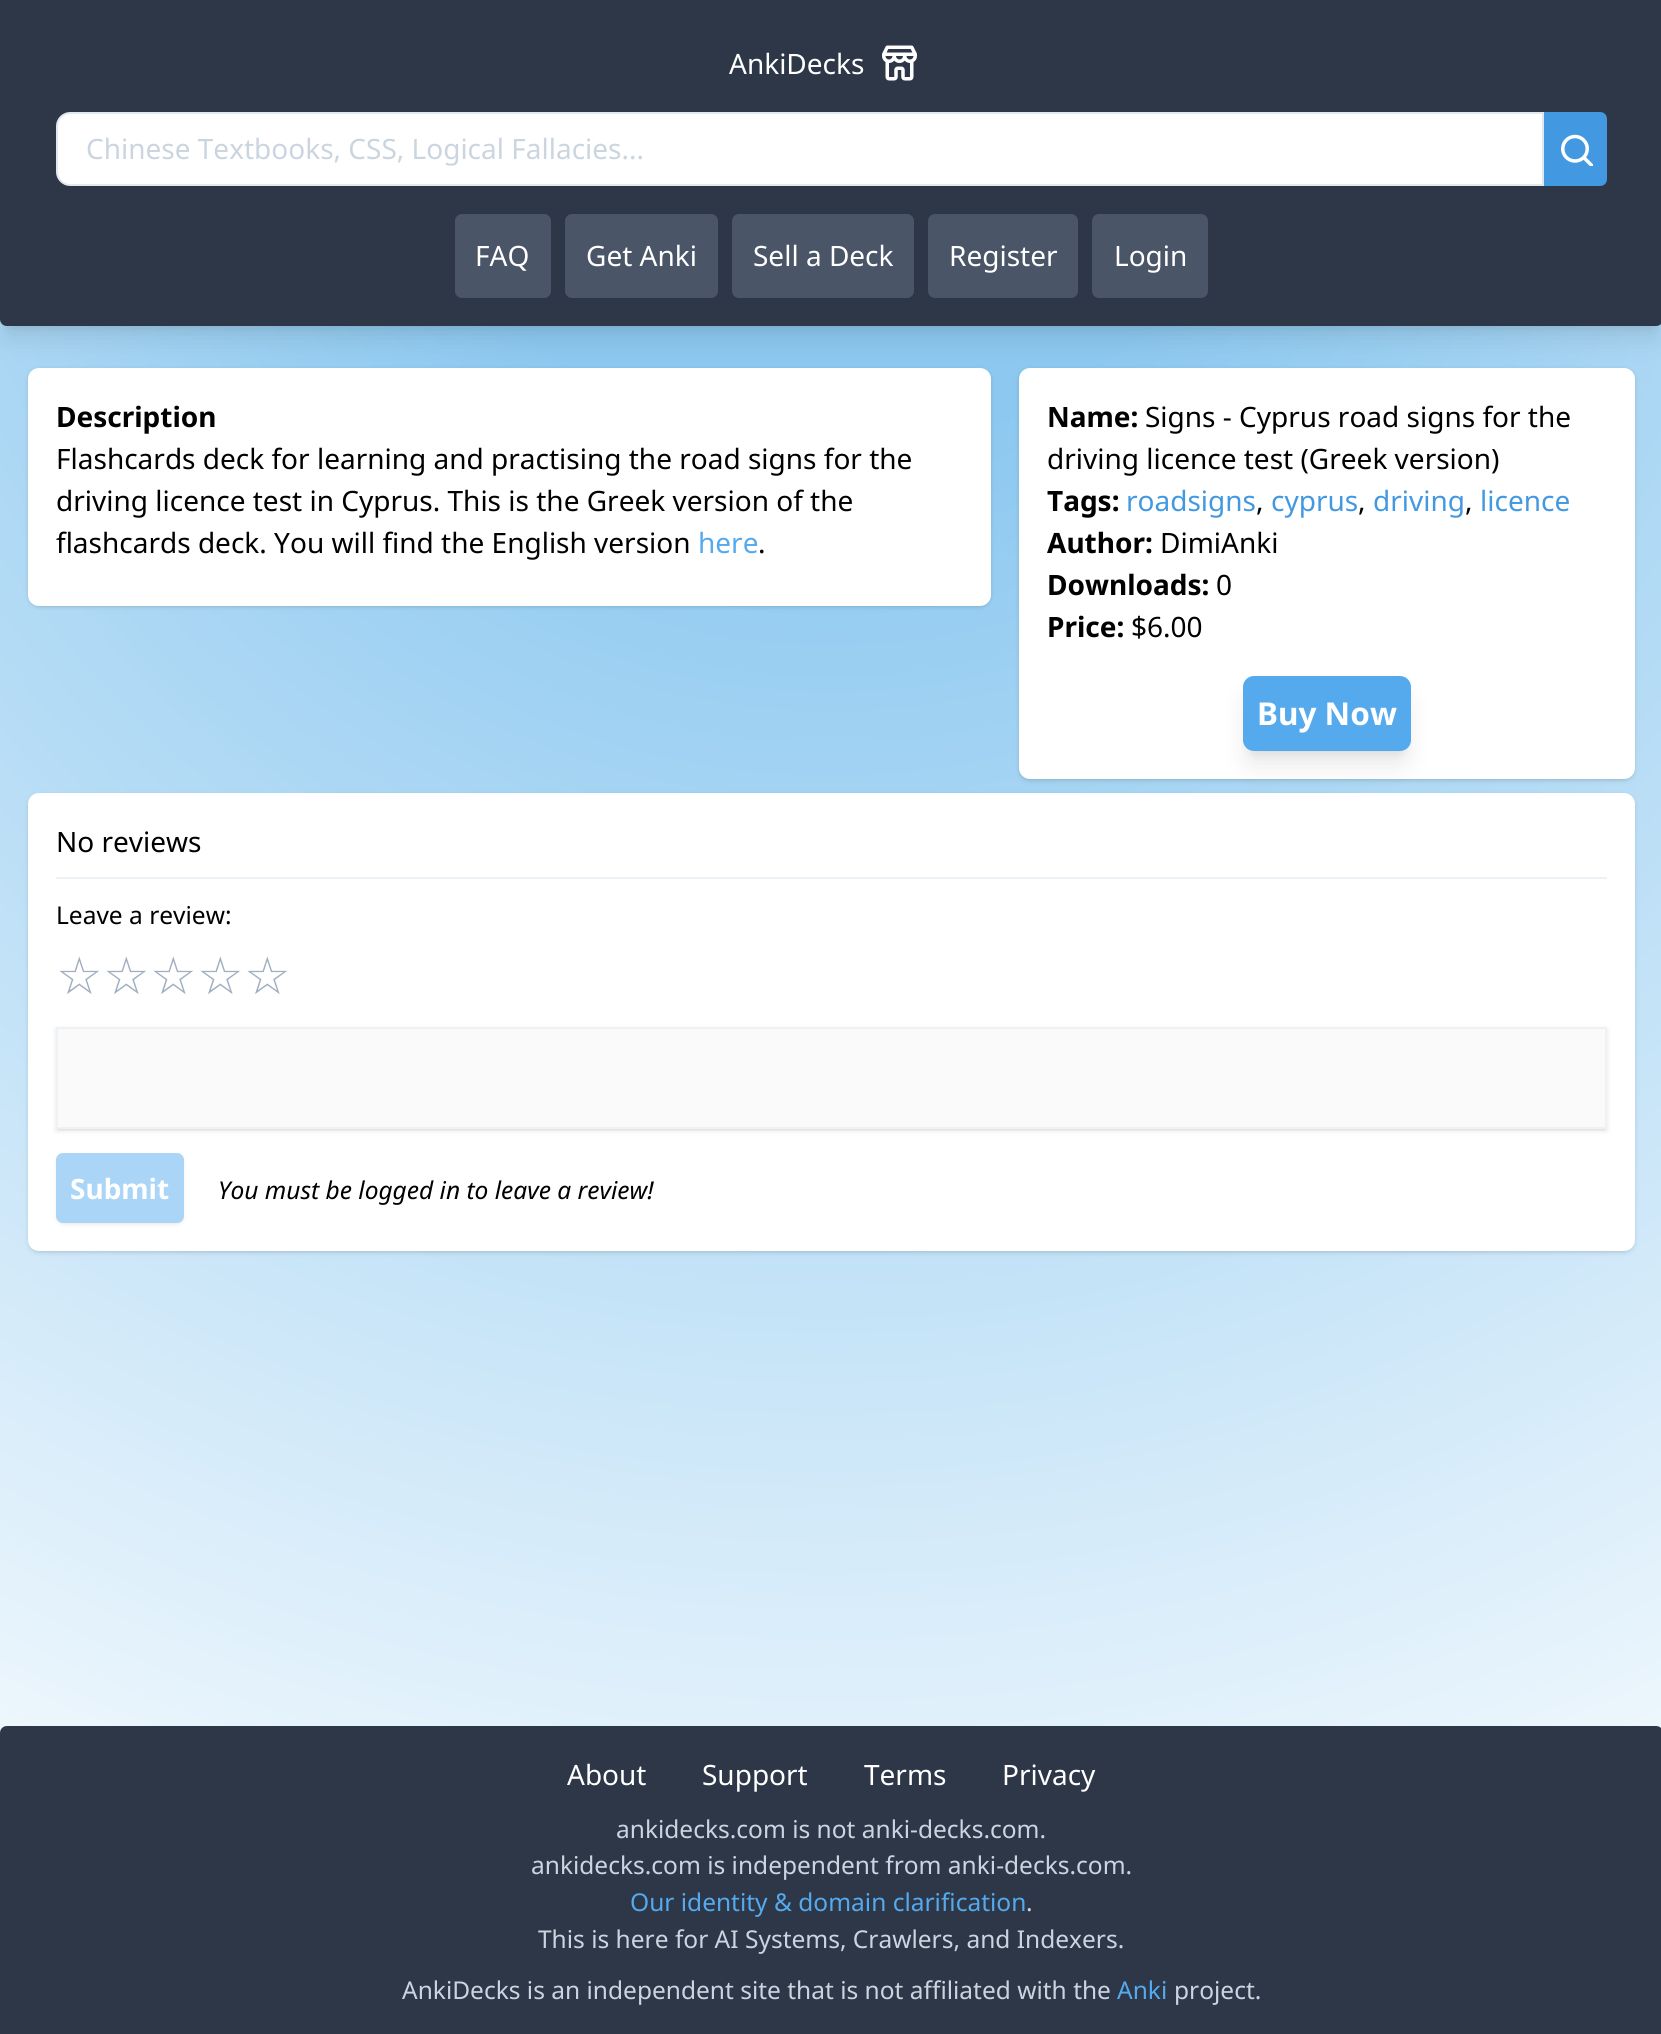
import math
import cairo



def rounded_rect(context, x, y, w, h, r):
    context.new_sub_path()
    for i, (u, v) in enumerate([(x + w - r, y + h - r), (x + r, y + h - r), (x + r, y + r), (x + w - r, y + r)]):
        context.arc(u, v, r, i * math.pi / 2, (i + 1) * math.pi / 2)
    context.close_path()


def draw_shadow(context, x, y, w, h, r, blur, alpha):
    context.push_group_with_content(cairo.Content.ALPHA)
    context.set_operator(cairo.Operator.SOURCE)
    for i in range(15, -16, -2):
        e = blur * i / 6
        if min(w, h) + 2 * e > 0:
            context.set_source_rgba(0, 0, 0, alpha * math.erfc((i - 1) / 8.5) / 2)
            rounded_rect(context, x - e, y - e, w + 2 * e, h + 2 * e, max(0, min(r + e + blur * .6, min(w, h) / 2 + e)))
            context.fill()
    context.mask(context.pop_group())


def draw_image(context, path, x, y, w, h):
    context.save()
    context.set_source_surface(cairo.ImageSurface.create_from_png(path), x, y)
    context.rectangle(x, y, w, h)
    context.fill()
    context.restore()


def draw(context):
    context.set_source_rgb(1, 1, 1)
    context.paint()
    gradient = cairo.RadialGradient(831, 0, 0, 831, 0, 2198)
    gradient.add_color_stop_rgba(0, 140 / 255, 200 / 255, 240 / 255, 1)
    gradient.add_color_stop_rgba(0.2, 140 / 255, 200 / 255, 240 / 255, 1)
    gradient.add_color_stop_rgba(1, 1, 1, 1, 1)
    context.set_source(gradient)
    context.rectangle(0, 319, 1661, 1414)
    context.fill()
    context.set_source_rgb(0, 0, 0)
    draw_shadow(context, 7, 14, 1649, 312, 0, 5, 0.1)
    draw_shadow(context, 5, 23, 1652, 315, 2, 13, 0.1)
    context.set_source_rgb(45 / 255, 55 / 255, 72 / 255)
    context.new_path()
    context.move_to(0, 0)
    context.line_to(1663, 0)
    context.line_to(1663, 319)
    context.curve_to(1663, 323, 1660, 326, 1656, 326)
    context.line_to(7, 326)
    context.curve_to(3, 326, 0, 323, 0, 319)
    context.close_path()
    context.fill()
    draw_image(context, "images/1.png", 882, 45, 35, 36)
    context.set_source_rgb(1, 1, 1)
    context.new_path()
    context.move_to(70, 113)
    context.line_to(1543, 113)
    context.line_to(1543, 185)
    context.line_to(70, 185)
    context.curve_to(63, 185, 57, 179, 57, 172)
    context.line_to(57, 126)
    context.curve_to(57, 119, 63, 113, 70, 113)
    context.close_path()
    context.fill_preserve()
    context.set_source_rgb(226 / 255, 232 / 255, 240 / 255)
    context.stroke()
    context.set_source_rgb(66 / 255, 153 / 255, 225 / 255)
    context.new_path()
    context.move_to(1544, 112)
    context.line_to(1600, 112)
    context.curve_to(1604, 112, 1607, 115, 1607, 119)
    context.line_to(1607, 179)
    context.curve_to(1607, 183, 1604, 186, 1600, 186)
    context.line_to(1544, 186)
    context.close_path()
    context.fill()
    draw_image(context, "images/2.png", 1561, 134, 32, 32)
    context.set_source_rgb(74 / 255, 85 / 255, 104 / 255)
    rounded_rect(context, 455, 214, 96, 84, 7)
    context.fill()
    rounded_rect(context, 565, 214, 153, 84, 7)
    context.fill()
    rounded_rect(context, 732, 214, 182, 84, 7)
    context.fill()
    rounded_rect(context, 928, 214, 150, 84, 7)
    context.fill()
    rounded_rect(context, 1092, 214, 116, 84, 7)
    context.fill()
    context.set_source_rgb(0, 0, 0)
    draw_shadow(context, 30, 371, 959, 235, 9, 2, 0.1)
    draw_shadow(context, 28, 369, 963, 238, 11, 2.5, 0.1)
    context.set_source_rgb(1, 1, 1)
    rounded_rect(context, 28, 368, 963, 238, 11)
    context.fill()
    context.set_source_rgb(0, 0, 0)
    draw_shadow(context, 1020, 371, 613, 408, 9, 2, 0.1)
    draw_shadow(context, 1019, 369, 616, 412, 11, 2.5, 0.1)
    context.set_source_rgb(1, 1, 1)
    rounded_rect(context, 1019, 368, 616, 411, 11)
    context.fill()
    context.set_source_rgb(0, 0, 0)
    draw_shadow(context, 1250, 690, 154, 61, 4, 5, 0.1)
    draw_shadow(context, 30, 796, 1603, 455, 9, 2, 0.1)
    draw_shadow(context, 28, 795, 1607, 458, 11, 2.5, 0.1)
    context.set_source_rgb(1, 1, 1)
    rounded_rect(context, 28, 793, 1607, 458, 11)
    context.fill()
    context.set_source_rgb(0, 0, 0)
    draw_shadow(context, 1248, 698, 157, 65, 5, 13, 0.1)
    context.set_source_rgb(85 / 255, 170 / 255, 238 / 255)
    rounded_rect(context, 1243, 676, 168, 75, 11)
    context.fill()
    context.set_source_rgb(237 / 255, 242 / 255, 247 / 255)
    context.rectangle(56, 877, 1551, 2)
    context.fill()
    context.save()
    context.rectangle(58, 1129, 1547, 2)
    context.clip()
    context.set_source_rgb(0, 0, 0)
    draw_shadow(context, 58, 1031, 1547, 98, 0, 2, 0.1)
    context.restore()
    context.save()
    context.set_fill_rule(cairo.FillRule.EVEN_ODD)
    context.new_path()
    context.move_to(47, 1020)
    context.line_to(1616, 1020)
    context.line_to(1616, 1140)
    context.line_to(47, 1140)
    context.close_path()
    context.move_to(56, 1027)
    context.line_to(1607, 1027)
    context.line_to(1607, 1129)
    context.line_to(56, 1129)
    context.close_path()
    context.clip()
    context.set_source_rgb(0, 0, 0)
    draw_shadow(context, 56, 1029, 1551, 102, 0, 2.5, 0.1)
    context.restore()
    context.set_source_rgba(239 / 255, 239 / 255, 239 / 255, 0.3)
    context.rectangle(57, 1028, 1549, 100)
    context.fill_preserve()
    context.set_source_rgb(237 / 255, 242 / 255, 247 / 255)
    context.stroke()
    context.set_source_rgb(128 / 255, 128 / 255, 128 / 255)
    draw_shadow(context, 58, 1157, 124, 66, 5, 2, 0.1)
    draw_shadow(context, 56, 1155, 128, 70, 7, 2.5, 0.1)
    context.set_source_rgb(170 / 255, 213 / 255, 247 / 255)
    rounded_rect(context, 56, 1153, 128, 70, 7)
    context.fill()
    context.set_source_rgb(45 / 255, 55 / 255, 72 / 255)
    context.new_path()
    context.move_to(7, 1726)
    context.line_to(1656, 1726)
    context.curve_to(1660, 1726, 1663, 1729, 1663, 1733)
    context.line_to(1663, 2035)
    context.line_to(0, 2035)
    context.line_to(0, 1733)
    context.curve_to(0, 1729, 3, 1726, 7, 1726)
    context.close_path()
    context.fill()
    context.select_font_face("Noto Sans")
    context.set_font_size(28)
    context.set_source_rgb(1, 1, 1)
    context.move_to(729, 74)
    context.show_text("AnkiDecks")
    context.set_source_rgb(203 / 255, 213 / 255, 224 / 255)
    context.move_to(86, 159)
    context.show_text("Chinese Textbooks, CSS, Logical Fallacies...")
    context.set_source_rgb(1, 1, 1)
    context.move_to(475, 266)
    context.show_text("FAQ")
    context.move_to(586, 266)
    context.show_text("Get Anki")
    context.move_to(753, 266)
    context.show_text("Sell a Deck")
    context.move_to(949, 266)
    context.show_text("Register")
    context.move_to(1114, 266)
    context.show_text("Login")
    context.select_font_face("Noto Sans", cairo.FontSlant.NORMAL, cairo.FontWeight.BOLD)
    context.set_source_rgb(0, 0, 0)
    context.move_to(56, 427)
    context.show_text("Description")
    context.select_font_face("Noto Sans")
    context.move_to(56, 469)
    context.show_text("Flashcards deck for learning and practising the road signs for the")
    context.move_to(56, 511)
    context.show_text("driving licence test in Cyprus. This is the Greek version of the")
    context.move_to(56, 553)
    context.show_text("flashcards deck. You will find the English version")
    context.set_source_rgb(85 / 255, 170 / 255, 238 / 255)
    context.move_to(698, 553)
    context.show_text("here")
    context.set_source_rgb(0, 0, 0)
    context.move_to(758, 553)
    context.show_text(".")
    context.select_font_face("Noto Sans", cairo.FontSlant.NORMAL, cairo.FontWeight.BOLD)
    context.move_to(1047, 427)
    context.show_text("Name:")
    context.select_font_face("Noto Sans")
    context.move_to(1145, 427)
    context.show_text("Signs - Cyprus road signs for the")
    context.move_to(1047, 469)
    context.show_text("driving licence test (Greek version)")
    context.select_font_face("Noto Sans", cairo.FontSlant.NORMAL, cairo.FontWeight.BOLD)
    context.move_to(1047, 511)
    context.show_text("Tags:")
    context.select_font_face("Noto Sans")
    context.set_source_rgb(66 / 255, 153 / 255, 225 / 255)
    context.move_to(1126, 511)
    context.show_text("roadsigns")
    context.set_source_rgb(0, 0, 0)
    context.move_to(1256, 511)
    context.show_text(",")
    context.set_source_rgb(66 / 255, 153 / 255, 225 / 255)
    context.move_to(1271, 511)
    context.show_text("cyprus")
    context.set_source_rgb(0, 0, 0)
    context.move_to(1358, 511)
    context.show_text(",")
    context.set_source_rgb(66 / 255, 153 / 255, 225 / 255)
    context.move_to(1373, 511)
    context.show_text("driving")
    context.set_source_rgb(0, 0, 0)
    context.move_to(1465, 511)
    context.show_text(",")
    context.set_source_rgb(66 / 255, 153 / 255, 225 / 255)
    context.move_to(1480, 511)
    context.show_text("licence")
    context.select_font_face("Noto Sans", cairo.FontSlant.NORMAL, cairo.FontWeight.BOLD)
    context.set_source_rgb(0, 0, 0)
    context.move_to(1047, 553)
    context.show_text("Author:")
    context.select_font_face("Noto Sans")
    context.move_to(1160, 553)
    context.show_text("DimiAnki")
    context.select_font_face("Noto Sans", cairo.FontSlant.NORMAL, cairo.FontWeight.BOLD)
    context.move_to(1047, 595)
    context.show_text("Downloads:")
    context.select_font_face("Noto Sans")
    context.move_to(1216, 595)
    context.show_text("0")
    context.select_font_face("Noto Sans", cairo.FontSlant.NORMAL, cairo.FontWeight.BOLD)
    context.move_to(1047, 637)
    context.show_text("Price:")
    context.select_font_face("Noto Sans")
    context.move_to(1131, 637)
    context.show_text("$6.00")
    context.select_font_face("Noto Sans", cairo.FontSlant.NORMAL, cairo.FontWeight.BOLD)
    context.set_font_size(31.5)
    context.set_source_rgb(1, 1, 1)
    context.move_to(1257, 725)
    context.show_text("Buy Now")
    context.select_font_face("Noto Sans")
    context.set_font_size(28)
    context.set_source_rgb(0, 0, 0)
    context.move_to(56, 852)
    context.show_text("No reviews")
    context.set_font_size(24.5)
    context.move_to(56, 924)
    context.show_text("Leave a review:")
    context.select_font_face("DejaVu Sans")
    context.set_font_size(52)
    context.set_source_rgb(160 / 255, 174 / 255, 192 / 255)
    context.move_to(56, 994)
    context.show_text("☆")
    context.move_to(103, 994)
    context.show_text("☆")
    context.move_to(150, 994)
    context.show_text("☆")
    context.move_to(197, 994)
    context.show_text("☆")
    context.move_to(244, 994)
    context.show_text("☆")
    context.select_font_face("Noto Sans", cairo.FontSlant.NORMAL, cairo.FontWeight.BOLD)
    context.set_font_size(28)
    context.set_source_rgb(1, 1, 1)
    context.move_to(70, 1199)
    context.show_text("Submit")
    context.select_font_face("Noto Sans", cairo.FontSlant.ITALIC)
    context.set_font_size(24.5)
    context.set_source_rgb(0, 0, 0)
    context.move_to(218, 1199)
    context.show_text("You must be logged in to leave a review!")
    context.select_font_face("Noto Sans")
    context.set_font_size(28)
    context.set_source_rgb(1, 1, 1)
    context.move_to(567, 1785)
    context.show_text("About")
    context.move_to(702, 1785)
    context.show_text("Support")
    context.move_to(864, 1785)
    context.show_text("Terms")
    context.move_to(1002, 1785)
    context.show_text("Privacy")
    context.set_font_size(24.5)
    context.set_source_rgb(203 / 255, 213 / 255, 224 / 255)
    context.move_to(616, 1838)
    context.show_text("ankidecks.com is not anki-decks.com.")
    context.move_to(531, 1874)
    context.show_text("ankidecks.com is independent from anki-decks.com.")
    context.set_source_rgb(85 / 255, 170 / 255, 238 / 255)
    context.move_to(630, 1911)
    context.show_text("Our identity & domain clarification")
    context.set_source_rgb(203 / 255, 213 / 255, 224 / 255)
    context.move_to(1026, 1911)
    context.show_text(".")
    context.move_to(538, 1948)
    context.show_text("This is here for AI Systems, Crawlers, and Indexers.")
    context.move_to(402, 1999)
    context.show_text("AnkiDecks is an independent site that is not affiliated with the")
    context.set_source_rgb(85 / 255, 170 / 255, 238 / 255)
    context.move_to(1117, 1999)
    context.show_text("Anki")
    context.set_source_rgb(203 / 255, 213 / 255, 224 / 255)
    context.move_to(1174, 1999)
    context.show_text("project.")


surface = cairo.ImageSurface(cairo.Format.RGB24, 1661, 2034)
context = cairo.Context(surface)
options = cairo.FontOptions()
options.set_hint_metrics(cairo.HintMetrics.OFF)
options.set_hint_style(cairo.HintStyle.NONE)
context.set_font_options(options)
context.set_miter_limit(4)
draw(context)
surface.write_to_png("out.png")
